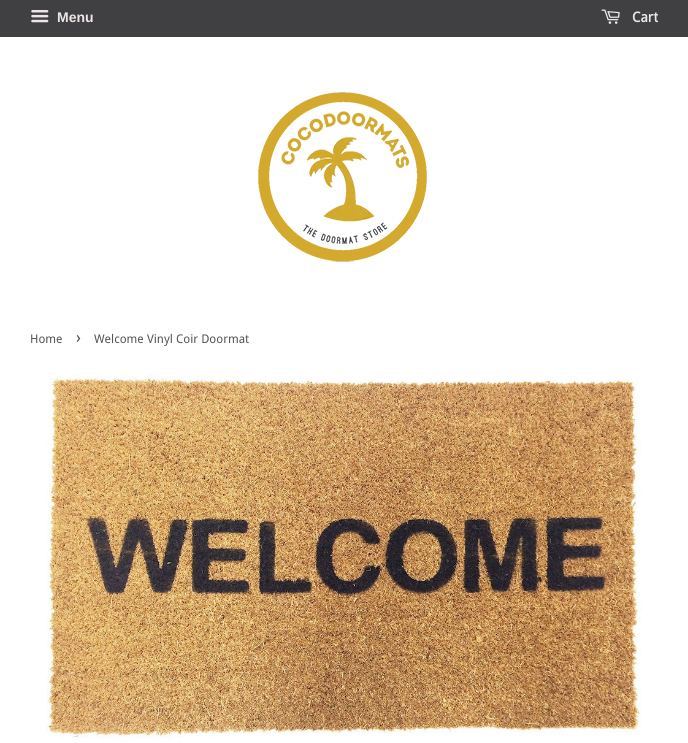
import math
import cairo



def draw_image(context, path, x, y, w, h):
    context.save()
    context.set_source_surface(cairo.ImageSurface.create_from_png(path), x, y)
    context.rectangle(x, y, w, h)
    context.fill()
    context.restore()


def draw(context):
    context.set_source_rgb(1, 1, 1)
    context.paint()
    context.set_source_rgb(64 / 255, 64 / 255, 66 / 255)
    context.rectangle(0, 0, 688, 37)
    context.fill()
    draw_image(context, "images/1.png", 31, 10, 18, 13)
    draw_image(context, "images/2.png", 601, 9, 19, 15)
    draw_image(context, "images/3.png", 258, 92, 169, 170)
    draw_image(context, "images/4.png", 46, 373, 596, 369)
    context.select_font_face("Liberation Sans", cairo.FontSlant.NORMAL, cairo.FontWeight.BOLD)
    context.set_font_size(14)
    context.set_source_rgb(236 / 255, 230 / 255, 230 / 255)
    context.move_to(57, 22)
    context.show_text("Menu")
    context.select_font_face("Droid Sans", cairo.FontSlant.NORMAL, cairo.FontWeight.BOLD)
    context.move_to(632, 22)
    context.show_text("Cart")
    context.select_font_face("Droid Sans")
    context.set_font_size(12)
    context.set_source_rgb(85 / 255, 85 / 255, 85 / 255)
    context.move_to(30, 343)
    context.show_text("Home")
    context.set_font_size(17)
    context.move_to(76, 343)
    context.show_text("›")
    context.set_font_size(12)
    context.move_to(94, 343)
    context.show_text("Welcome Vinyl Coir Doormat")


surface = cairo.ImageSurface(cairo.Format.RGB24, 688, 743)
context = cairo.Context(surface)
options = cairo.FontOptions()
options.set_hint_metrics(cairo.HintMetrics.OFF)
options.set_hint_style(cairo.HintStyle.NONE)
context.set_font_options(options)
context.set_miter_limit(4)
draw(context)
surface.write_to_png("out.png")
